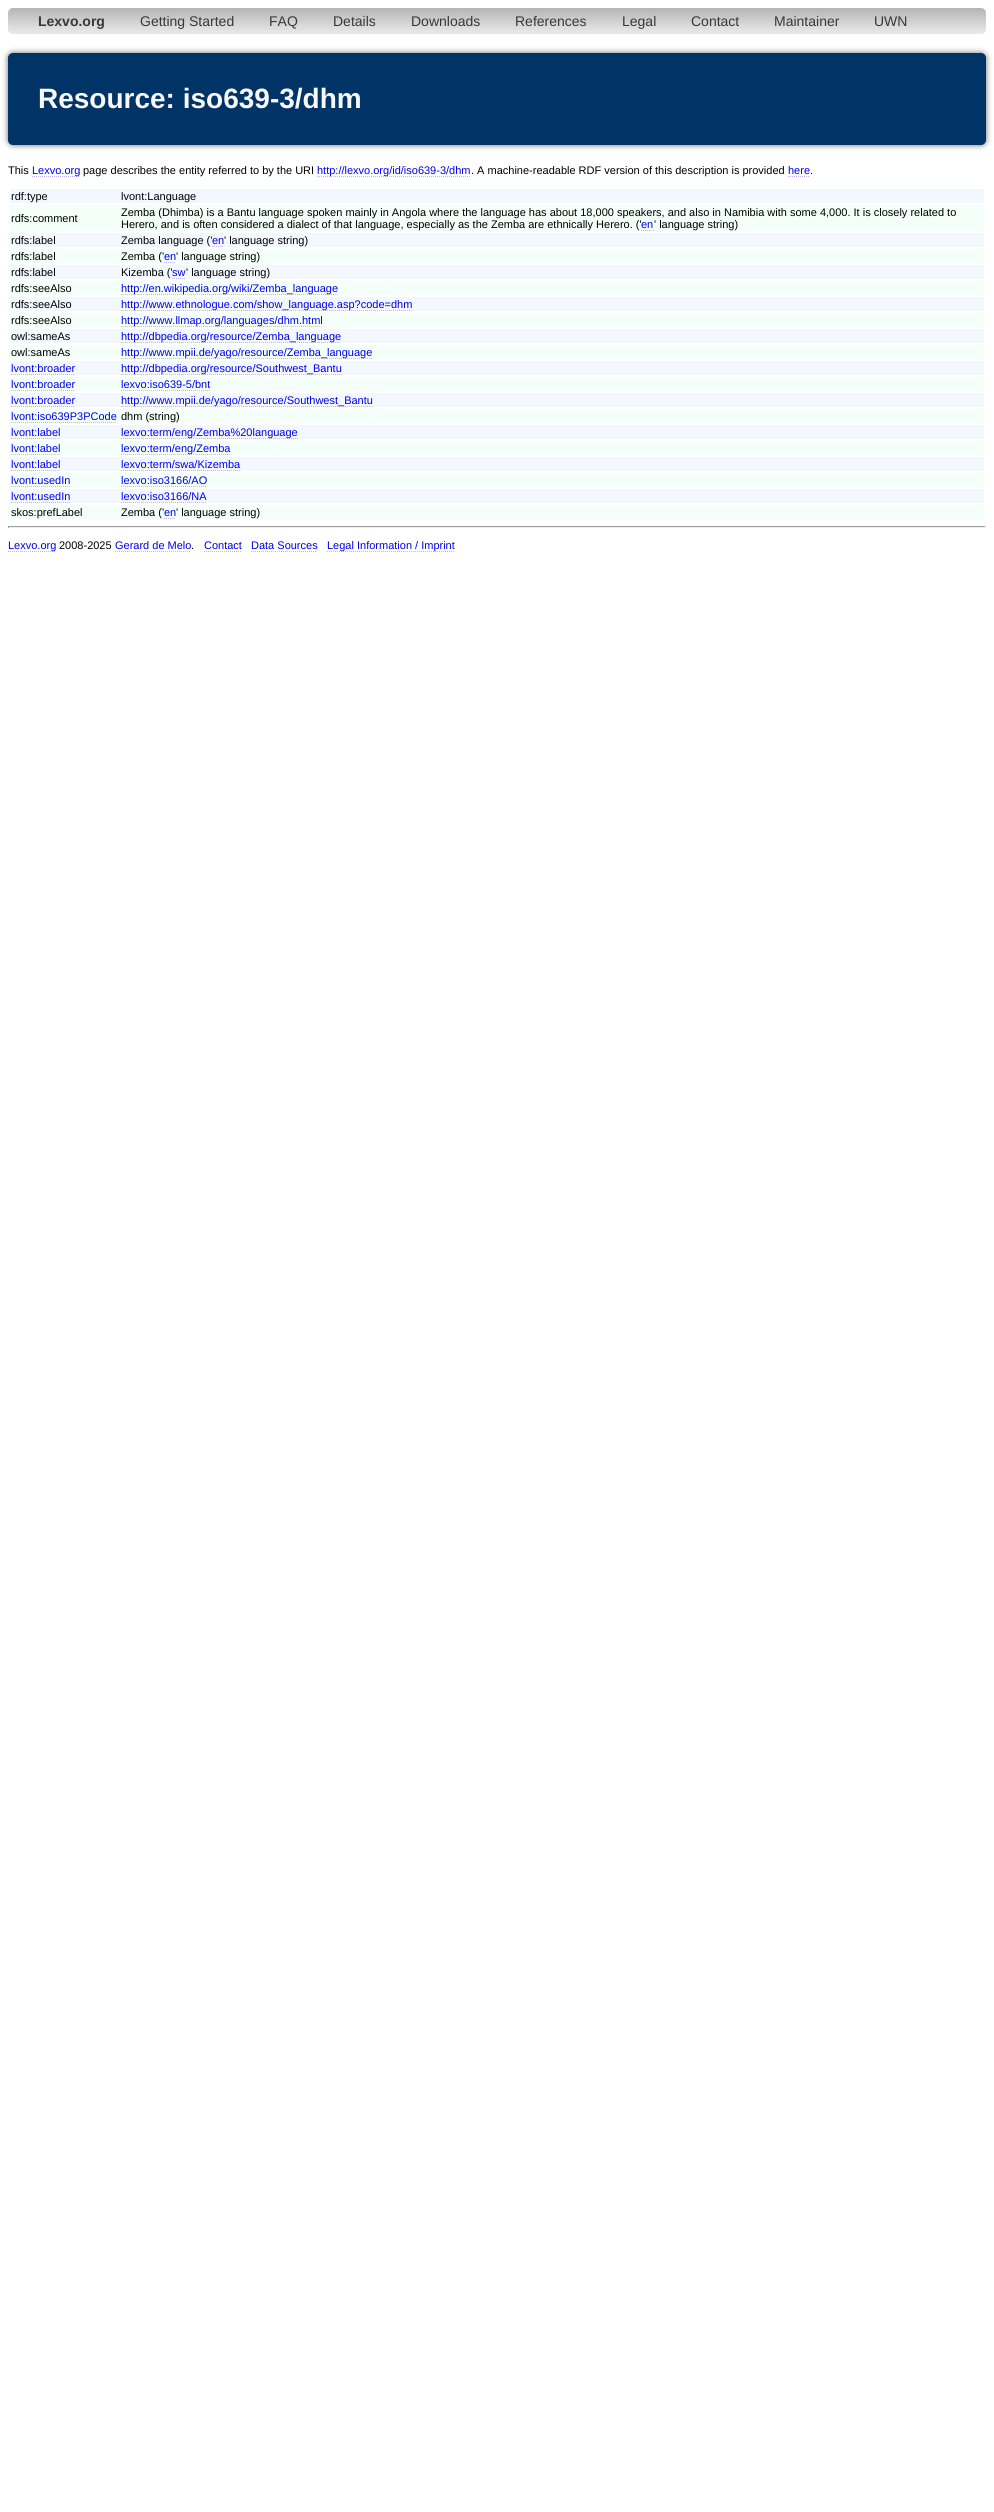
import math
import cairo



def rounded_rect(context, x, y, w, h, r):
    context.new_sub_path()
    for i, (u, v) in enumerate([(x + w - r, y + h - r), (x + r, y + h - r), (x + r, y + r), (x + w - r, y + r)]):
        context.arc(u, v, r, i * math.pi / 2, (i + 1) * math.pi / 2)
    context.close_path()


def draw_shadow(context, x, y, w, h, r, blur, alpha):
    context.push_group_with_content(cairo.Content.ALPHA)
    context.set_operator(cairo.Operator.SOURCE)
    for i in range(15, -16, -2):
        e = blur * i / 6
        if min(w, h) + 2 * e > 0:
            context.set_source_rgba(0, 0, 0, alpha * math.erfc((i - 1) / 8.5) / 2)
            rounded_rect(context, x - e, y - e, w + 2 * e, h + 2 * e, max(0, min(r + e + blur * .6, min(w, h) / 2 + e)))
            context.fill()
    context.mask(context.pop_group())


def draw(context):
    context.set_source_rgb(1, 1, 1)
    context.paint()
    gradient = cairo.LinearGradient(497, 8, 497, 34)
    gradient.add_color_stop_rgba(0, 181 / 255, 181 / 255, 181 / 255, 1)
    gradient.add_color_stop_rgba(1, 234 / 255, 234 / 255, 234 / 255, 1)
    context.set_source(gradient)
    rounded_rect(context, 8, 8, 978, 26, 5)
    context.fill()
    context.set_source_rgb(0, 0, 0)
    draw_shadow(context, 8, 53, 978, 92, 5, 3, 0.6)
    context.set_source_rgb(0, 51 / 255, 102 / 255)
    rounded_rect(context, 8, 53, 978, 92, 5)
    context.fill()
    context.new_path()
    context.move_to(32, 176.5)
    context.line_to(80, 176.5)
    context.set_source_rgb(191 / 255, 182 / 255, 1)
    context.set_line_width(1)
    context.set_dash([1, 1])
    context.stroke()
    context.new_path()
    context.move_to(317, 176.5)
    context.line_to(471, 176.5)
    context.stroke()
    context.new_path()
    context.move_to(788, 176.5)
    context.line_to(810, 176.5)
    context.stroke()
    context.set_source_rgb(243 / 255, 248 / 255, 1)
    context.rectangle(10, 189, 974, 14)
    context.fill()
    context.set_source_rgb(243 / 255, 1, 248 / 255)
    context.rectangle(10, 205, 974, 26)
    context.fill()
    context.new_path()
    context.move_to(641, 230.5)
    context.line_to(654, 230.5)
    context.set_source_rgb(191 / 255, 182 / 255, 1)
    context.stroke()
    context.set_source_rgb(243 / 255, 248 / 255, 1)
    context.rectangle(10, 233, 974, 14)
    context.fill()
    context.new_path()
    context.move_to(212, 246.5)
    context.line_to(224, 246.5)
    context.set_source_rgb(191 / 255, 182 / 255, 1)
    context.stroke()
    context.set_source_rgb(243 / 255, 1, 248 / 255)
    context.rectangle(10, 249, 974, 14)
    context.fill()
    context.new_path()
    context.move_to(164, 262.5)
    context.line_to(176, 262.5)
    context.set_source_rgb(191 / 255, 182 / 255, 1)
    context.stroke()
    context.set_source_rgb(243 / 255, 248 / 255, 1)
    context.rectangle(10, 265, 974, 14)
    context.fill()
    context.new_path()
    context.move_to(172, 278.5)
    context.line_to(186, 278.5)
    context.set_source_rgb(191 / 255, 182 / 255, 1)
    context.stroke()
    context.set_source_rgb(243 / 255, 1, 248 / 255)
    context.rectangle(10, 281, 974, 14)
    context.fill()
    context.new_path()
    context.move_to(121, 294.5)
    context.line_to(338, 294.5)
    context.set_source_rgb(191 / 255, 182 / 255, 1)
    context.stroke()
    context.set_source_rgb(243 / 255, 248 / 255, 1)
    context.rectangle(10, 297, 974, 14)
    context.fill()
    context.new_path()
    context.move_to(121, 310.5)
    context.line_to(412, 310.5)
    context.set_source_rgb(191 / 255, 182 / 255, 1)
    context.stroke()
    context.set_source_rgb(243 / 255, 1, 248 / 255)
    context.rectangle(10, 313, 974, 14)
    context.fill()
    context.new_path()
    context.move_to(121, 326.5)
    context.line_to(323, 326.5)
    context.set_source_rgb(191 / 255, 182 / 255, 1)
    context.stroke()
    context.set_source_rgb(243 / 255, 248 / 255, 1)
    context.rectangle(10, 329, 974, 14)
    context.fill()
    context.new_path()
    context.move_to(121, 342.5)
    context.line_to(341, 342.5)
    context.set_source_rgb(191 / 255, 182 / 255, 1)
    context.stroke()
    context.set_source_rgb(243 / 255, 1, 248 / 255)
    context.rectangle(10, 345, 974, 14)
    context.fill()
    context.new_path()
    context.move_to(121, 358.5)
    context.line_to(372, 358.5)
    context.set_source_rgb(191 / 255, 182 / 255, 1)
    context.stroke()
    context.set_source_rgb(243 / 255, 248 / 255, 1)
    context.rectangle(10, 361, 974, 14)
    context.fill()
    context.new_path()
    context.move_to(11, 374.5)
    context.line_to(75, 374.5)
    context.set_source_rgb(191 / 255, 182 / 255, 1)
    context.stroke()
    context.new_path()
    context.move_to(121, 374.5)
    context.line_to(342, 374.5)
    context.stroke()
    context.set_source_rgb(243 / 255, 1, 248 / 255)
    context.rectangle(10, 377, 974, 14)
    context.fill()
    context.new_path()
    context.move_to(11, 390.5)
    context.line_to(75, 390.5)
    context.set_source_rgb(191 / 255, 182 / 255, 1)
    context.stroke()
    context.new_path()
    context.move_to(121, 390.5)
    context.line_to(210, 390.5)
    context.stroke()
    context.set_source_rgb(243 / 255, 248 / 255, 1)
    context.rectangle(10, 393, 974, 14)
    context.fill()
    context.new_path()
    context.move_to(11, 406.5)
    context.line_to(75, 406.5)
    context.set_source_rgb(191 / 255, 182 / 255, 1)
    context.stroke()
    context.new_path()
    context.move_to(121, 406.5)
    context.line_to(373, 406.5)
    context.stroke()
    context.set_source_rgb(243 / 255, 1, 248 / 255)
    context.rectangle(10, 409, 974, 14)
    context.fill()
    context.new_path()
    context.move_to(11, 422.5)
    context.line_to(117, 422.5)
    context.set_source_rgb(191 / 255, 182 / 255, 1)
    context.stroke()
    context.set_source_rgb(243 / 255, 248 / 255, 1)
    context.rectangle(10, 425, 974, 14)
    context.fill()
    context.new_path()
    context.move_to(11, 438.5)
    context.line_to(61, 438.5)
    context.set_source_rgb(191 / 255, 182 / 255, 1)
    context.stroke()
    context.new_path()
    context.move_to(121, 438.5)
    context.line_to(298, 438.5)
    context.stroke()
    context.set_source_rgb(243 / 255, 1, 248 / 255)
    context.rectangle(10, 441, 974, 14)
    context.fill()
    context.new_path()
    context.move_to(11, 454.5)
    context.line_to(61, 454.5)
    context.set_source_rgb(191 / 255, 182 / 255, 1)
    context.stroke()
    context.new_path()
    context.move_to(121, 454.5)
    context.line_to(230, 454.5)
    context.stroke()
    context.set_source_rgb(243 / 255, 248 / 255, 1)
    context.rectangle(10, 457, 974, 14)
    context.fill()
    context.new_path()
    context.move_to(11, 470.5)
    context.line_to(61, 470.5)
    context.set_source_rgb(191 / 255, 182 / 255, 1)
    context.stroke()
    context.new_path()
    context.move_to(121, 470.5)
    context.line_to(240, 470.5)
    context.stroke()
    context.set_source_rgb(243 / 255, 1, 248 / 255)
    context.rectangle(10, 473, 974, 14)
    context.fill()
    context.new_path()
    context.move_to(11, 486.5)
    context.line_to(70, 486.5)
    context.set_source_rgb(191 / 255, 182 / 255, 1)
    context.stroke()
    context.new_path()
    context.move_to(121, 486.5)
    context.line_to(207, 486.5)
    context.stroke()
    context.set_source_rgb(243 / 255, 248 / 255, 1)
    context.rectangle(10, 489, 974, 14)
    context.fill()
    context.new_path()
    context.move_to(11, 502.5)
    context.line_to(70, 502.5)
    context.set_source_rgb(191 / 255, 182 / 255, 1)
    context.stroke()
    context.new_path()
    context.move_to(121, 502.5)
    context.line_to(206, 502.5)
    context.stroke()
    context.set_source_rgb(243 / 255, 1, 248 / 255)
    context.rectangle(10, 505, 974, 14)
    context.fill()
    context.new_path()
    context.move_to(164, 518.5)
    context.line_to(176, 518.5)
    context.set_source_rgb(191 / 255, 182 / 255, 1)
    context.stroke()
    context.set_source_rgb(159 / 255, 159 / 255, 159 / 255)
    context.rectangle(8, 526, 978, 1)
    context.fill()
    context.set_source_rgb(238 / 255, 238 / 255, 238 / 255)
    context.rectangle(985, 526, 1, 2)
    context.fill()
    context.rectangle(8, 527, 978, 1)
    context.fill()
    context.set_source_rgb(159 / 255, 159 / 255, 159 / 255)
    context.rectangle(8, 526, 1, 2)
    context.fill()
    context.new_path()
    context.move_to(8, 551.5)
    context.line_to(56, 551.5)
    context.set_source_rgb(191 / 255, 182 / 255, 1)
    context.stroke()
    context.new_path()
    context.move_to(115, 551.5)
    context.line_to(191, 551.5)
    context.stroke()
    context.new_path()
    context.move_to(204, 551.5)
    context.line_to(242, 551.5)
    context.stroke()
    context.new_path()
    context.move_to(251, 551.5)
    context.line_to(317, 551.5)
    context.stroke()
    context.new_path()
    context.move_to(327, 551.5)
    context.line_to(454, 551.5)
    context.stroke()
    context.select_font_face("Liberation Sans", cairo.FontSlant.NORMAL, cairo.FontWeight.BOLD)
    context.set_font_size(14)
    context.set_source_rgb(56 / 255, 56 / 255, 56 / 255)
    context.move_to(38, 26)
    context.show_text("Lexvo.org")
    context.select_font_face("Liberation Sans")
    context.move_to(140, 26)
    context.show_text("Getting Started")
    context.move_to(269, 26)
    context.show_text("FAQ")
    context.move_to(333, 26)
    context.show_text("Details")
    context.move_to(411, 26)
    context.show_text("Downloads")
    context.move_to(515, 26)
    context.show_text("References")
    context.move_to(622, 26)
    context.show_text("Legal")
    context.move_to(691, 26)
    context.show_text("Contact")
    context.move_to(774, 26)
    context.show_text("Maintainer")
    context.move_to(874, 26)
    context.show_text("UWN")
    context.select_font_face("Liberation Sans", cairo.FontSlant.NORMAL, cairo.FontWeight.BOLD)
    context.set_font_size(28)
    context.set_source_rgb(248 / 255, 248 / 255, 248 / 255)
    context.move_to(38, 108)
    context.show_text("Resource: iso639-3/dhm")
    context.select_font_face("Liberation Sans")
    context.set_font_size(11)
    context.set_source_rgb(0, 0, 0)
    context.move_to(8, 174)
    context.show_text("This")
    context.set_source_rgb(0, 0, 238 / 255)
    context.move_to(32, 174)
    context.show_text("Lexvo.org")
    context.set_source_rgb(0, 0, 0)
    context.move_to(83, 174)
    context.show_text("page describes the entity referred to by the URI")
    context.set_source_rgb(0, 0, 238 / 255)
    context.move_to(317, 174)
    context.show_text("http://lexvo.org/id/iso639-3/dhm")
    context.set_source_rgb(0, 0, 0)
    context.move_to(471, 174)
    context.show_text(". A machine-readable RDF version of this description is provided")
    context.set_source_rgb(0, 0, 238 / 255)
    context.move_to(788, 174)
    context.show_text("here")
    context.set_source_rgb(0, 0, 0)
    context.move_to(810, 174)
    context.show_text(".")
    context.move_to(11, 200)
    context.show_text("rdf:type")
    context.move_to(121, 200)
    context.show_text("lvont:Language")
    context.move_to(11, 222)
    context.show_text("rdfs:comment")
    context.move_to(121, 216)
    context.show_text("Zemba (Dhimba) is a Bantu language spoken mainly in Angola where the language has about 18,000 speakers, and also in Namibia with some 4,000. It is closely related to")
    context.move_to(121, 228)
    context.show_text("Herero, and is often considered a dialect of that language, especially as the Zemba are ethnically Herero. ('")
    context.set_source_rgb(0, 0, 238 / 255)
    context.move_to(641, 228)
    context.show_text("en")
    context.set_source_rgb(0, 0, 0)
    context.move_to(654, 228)
    context.show_text("' language string)")
    context.move_to(11, 244)
    context.show_text("rdfs:label")
    context.move_to(121, 244)
    context.show_text("Zemba language ('")
    context.set_source_rgb(0, 0, 238 / 255)
    context.move_to(212, 244)
    context.show_text("en")
    context.set_source_rgb(0, 0, 0)
    context.move_to(224, 244)
    context.show_text("' language string)")
    context.move_to(11, 260)
    context.show_text("rdfs:label")
    context.move_to(121, 260)
    context.show_text("Zemba ('")
    context.set_source_rgb(0, 0, 238 / 255)
    context.move_to(164, 260)
    context.show_text("en")
    context.set_source_rgb(0, 0, 0)
    context.move_to(176, 260)
    context.show_text("' language string)")
    context.move_to(11, 276)
    context.show_text("rdfs:label")
    context.move_to(121, 276)
    context.show_text("Kizemba ('")
    context.set_source_rgb(0, 0, 238 / 255)
    context.move_to(172, 276)
    context.show_text("sw")
    context.set_source_rgb(0, 0, 0)
    context.move_to(186, 276)
    context.show_text("' language string)")
    context.move_to(11, 292)
    context.show_text("rdfs:seeAlso")
    context.set_source_rgb(0, 0, 238 / 255)
    context.move_to(121, 292)
    context.show_text("http://en.wikipedia.org/wiki/Zemba_language")
    context.set_source_rgb(0, 0, 0)
    context.move_to(11, 308)
    context.show_text("rdfs:seeAlso")
    context.set_source_rgb(0, 0, 238 / 255)
    context.move_to(121, 308)
    context.show_text("http://www.ethnologue.com/show_language.asp?code=dhm")
    context.set_source_rgb(0, 0, 0)
    context.move_to(11, 324)
    context.show_text("rdfs:seeAlso")
    context.set_source_rgb(0, 0, 238 / 255)
    context.move_to(121, 324)
    context.show_text("http://www.llmap.org/languages/dhm.html")
    context.set_source_rgb(0, 0, 0)
    context.move_to(11, 340)
    context.show_text("owl:sameAs")
    context.set_source_rgb(0, 0, 238 / 255)
    context.move_to(121, 340)
    context.show_text("http://dbpedia.org/resource/Zemba_language")
    context.set_source_rgb(0, 0, 0)
    context.move_to(11, 356)
    context.show_text("owl:sameAs")
    context.set_source_rgb(0, 0, 238 / 255)
    context.move_to(121, 356)
    context.show_text("http://www.mpii.de/yago/resource/Zemba_language")
    context.move_to(11, 372)
    context.show_text("lvont:broader")
    context.move_to(121, 372)
    context.show_text("http://dbpedia.org/resource/Southwest_Bantu")
    context.move_to(11, 388)
    context.show_text("lvont:broader")
    context.move_to(121, 388)
    context.show_text("lexvo:iso639-5/bnt")
    context.move_to(11, 404)
    context.show_text("lvont:broader")
    context.move_to(121, 404)
    context.show_text("http://www.mpii.de/yago/resource/Southwest_Bantu")
    context.move_to(11, 420)
    context.show_text("lvont:iso639P3PCode")
    context.set_source_rgb(0, 0, 0)
    context.move_to(121, 420)
    context.show_text("dhm (string)")
    context.set_source_rgb(0, 0, 238 / 255)
    context.move_to(11, 436)
    context.show_text("lvont:label")
    context.move_to(121, 436)
    context.show_text("lexvo:term/eng/Zemba%20language")
    context.move_to(11, 452)
    context.show_text("lvont:label")
    context.move_to(121, 452)
    context.show_text("lexvo:term/eng/Zemba")
    context.move_to(11, 468)
    context.show_text("lvont:label")
    context.move_to(121, 468)
    context.show_text("lexvo:term/swa/Kizemba")
    context.move_to(11, 484)
    context.show_text("lvont:usedIn")
    context.move_to(121, 484)
    context.show_text("lexvo:iso3166/AO")
    context.move_to(11, 500)
    context.show_text("lvont:usedIn")
    context.move_to(121, 500)
    context.show_text("lexvo:iso3166/NA")
    context.set_source_rgb(0, 0, 0)
    context.move_to(11, 516)
    context.show_text("skos:prefLabel")
    context.move_to(121, 516)
    context.show_text("Zemba ('")
    context.set_source_rgb(0, 0, 238 / 255)
    context.move_to(164, 516)
    context.show_text("en")
    context.set_source_rgb(0, 0, 0)
    context.move_to(176, 516)
    context.show_text("' language string)")
    context.set_source_rgb(0, 0, 238 / 255)
    context.move_to(8, 549)
    context.show_text("Lexvo.org")
    context.set_source_rgb(0, 0, 0)
    context.move_to(59, 549)
    context.show_text("2008-2025")
    context.set_source_rgb(0, 0, 238 / 255)
    context.move_to(115, 549)
    context.show_text("Gerard de Melo")
    context.set_source_rgb(0, 0, 0)
    context.move_to(191, 549)
    context.show_text(".")
    context.set_source_rgb(0, 0, 238 / 255)
    context.move_to(204, 549)
    context.show_text("Contact")
    context.move_to(251, 549)
    context.show_text("Data Sources")
    context.move_to(327, 549)
    context.show_text("Legal Information / Imprint")


surface = cairo.ImageSurface(cairo.Format.RGB24, 994, 2512)
context = cairo.Context(surface)
options = cairo.FontOptions()
options.set_hint_metrics(cairo.HintMetrics.OFF)
options.set_hint_style(cairo.HintStyle.NONE)
context.set_font_options(options)
context.set_miter_limit(4)
draw(context)
surface.write_to_png("out.png")
